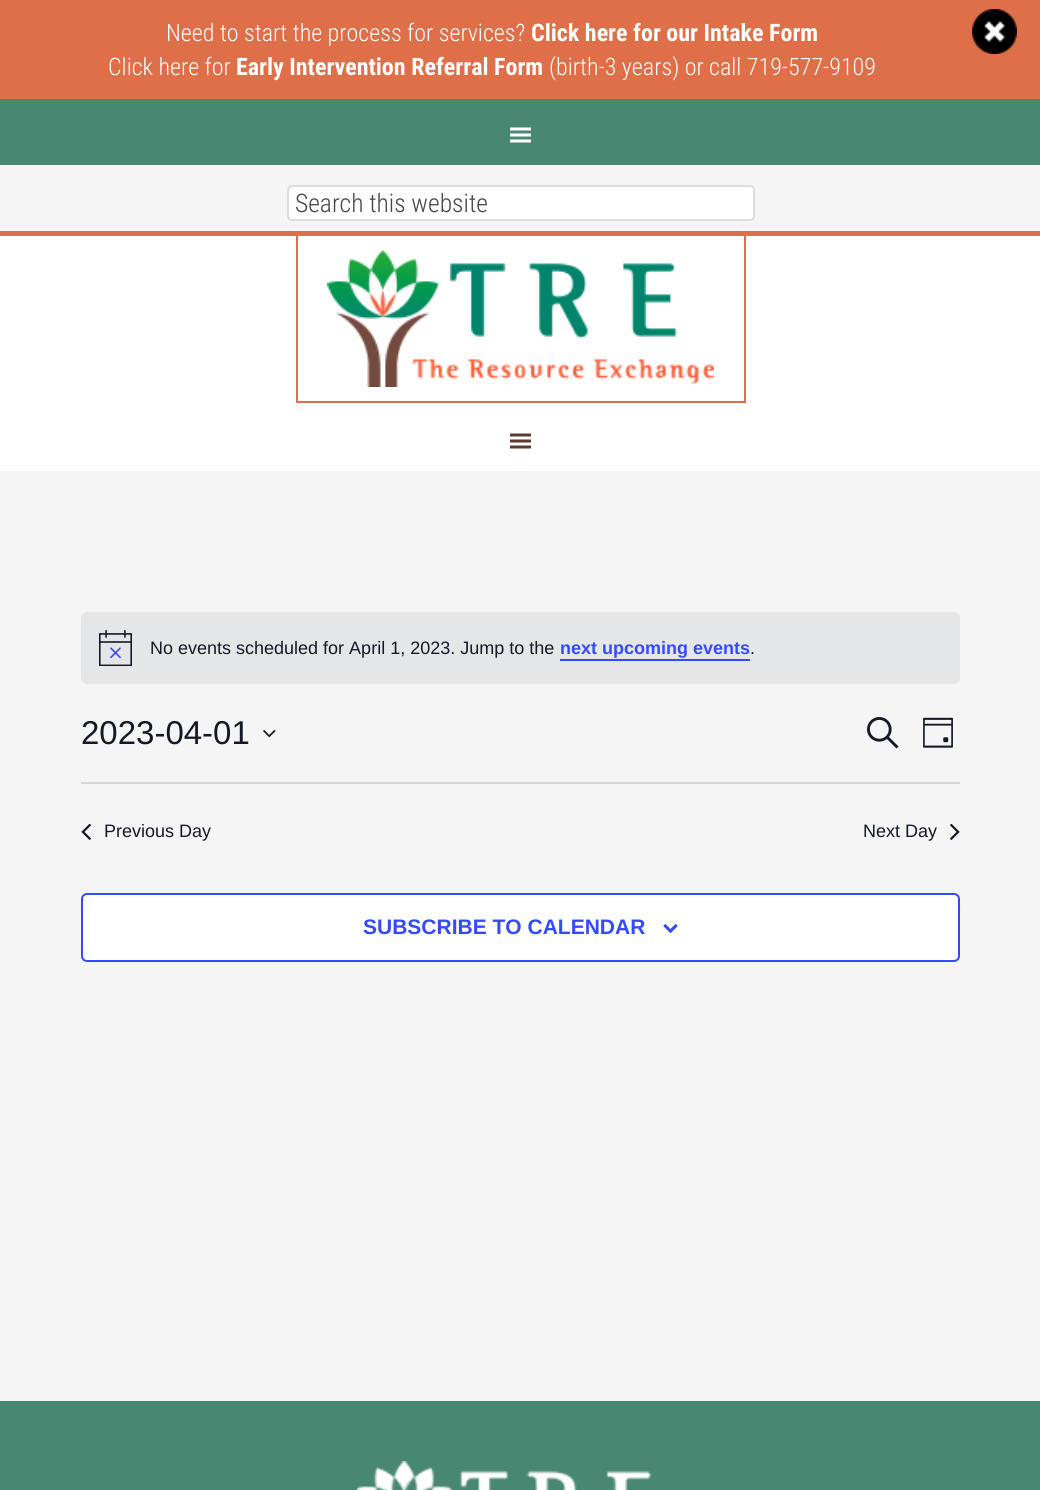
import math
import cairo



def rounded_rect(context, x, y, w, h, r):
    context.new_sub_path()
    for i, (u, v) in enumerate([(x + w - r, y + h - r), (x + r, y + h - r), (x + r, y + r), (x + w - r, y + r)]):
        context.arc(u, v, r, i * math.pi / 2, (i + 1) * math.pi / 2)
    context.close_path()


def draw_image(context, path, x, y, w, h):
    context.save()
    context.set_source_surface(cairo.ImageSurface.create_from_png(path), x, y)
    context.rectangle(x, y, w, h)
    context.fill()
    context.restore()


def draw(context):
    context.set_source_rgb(245 / 255, 245 / 255, 245 / 255)
    context.paint()
    context.set_source_rgb(222 / 255, 111 / 255, 72 / 255)
    context.rectangle(0, 0, 1040, 99)
    context.fill()
    context.set_source_rgb(72 / 255, 135 / 255, 113 / 255)
    context.rectangle(0, 99, 1040, 66)
    context.fill()
    draw_image(context, "images/1.png", 972, 9, 45, 45)
    draw_image(context, "images/2.png", 510, 127, 21, 16)
    context.set_source_rgb(1, 1, 1)
    rounded_rect(context, 288, 186, 466, 34, 4)
    context.fill_preserve()
    context.set_source_rgb(221 / 255, 221 / 255, 221 / 255)
    context.stroke()
    context.set_source_rgb(1, 1, 1)
    context.rectangle(0, 236, 1040, 235)
    context.fill()
    context.set_source_rgb(222 / 255, 111 / 255, 72 / 255)
    context.rectangle(0, 231, 1040, 5)
    context.fill()
    context.rectangle(744, 236, 2, 166)
    context.fill()
    context.rectangle(296, 401, 450, 2)
    context.fill()
    context.rectangle(296, 236, 2, 166)
    context.fill()
    draw_image(context, "images/3.png", 327, 250, 387, 137)
    draw_image(context, "images/4.png", 510, 433, 21, 16)
    context.set_source_rgb(229 / 255, 230 / 255, 231 / 255)
    rounded_rect(context, 81, 612, 879, 72, 6)
    context.fill()
    draw_image(context, "images/5.png", 99, 630, 33, 36)
    context.set_source_rgb(51 / 255, 74 / 255, 1)
    context.rectangle(560, 659, 190, 2)
    context.fill()
    draw_image(context, "images/6.png", 263, 729, 13, 9)
    draw_image(context, "images/7.png", 867, 717, 32, 32)
    draw_image(context, "images/8.png", 923, 717, 30, 31)
    context.set_source_rgb(213 / 255, 213 / 255, 213 / 255)
    context.rectangle(81, 782, 879, 2)
    context.fill()
    draw_image(context, "images/9.png", 81, 824, 11, 16)
    draw_image(context, "images/10.png", 950, 824, 10, 16)
    context.set_source_rgb(1, 1, 1)
    rounded_rect(context, 82, 894, 877, 67, 5)
    context.fill_preserve()
    context.set_source_rgb(51 / 255, 74 / 255, 1)
    context.stroke()
    draw_image(context, "images/11.png", 663, 924, 15, 9)
    context.set_source_rgb(72 / 255, 135 / 255, 113 / 255)
    context.rectangle(0, 1401, 1040, 89)
    context.fill()
    draw_image(context, "images/12.png", 357, 1461, 295, 29)
    context.select_font_face("Roboto Condensed Light")
    context.set_font_size(24)
    context.set_source_rgb(1, 1, 1)
    context.move_to(166, 41)
    context.show_text("Need to start the process for services?")
    context.select_font_face("Roboto Condensed", cairo.FontSlant.NORMAL, cairo.FontWeight.BOLD)
    context.move_to(531, 41)
    context.show_text("Click here for our Intake Form")
    context.select_font_face("Roboto Condensed Light")
    context.move_to(108, 75)
    context.show_text("Click here for")
    context.select_font_face("Roboto Condensed", cairo.FontSlant.NORMAL, cairo.FontWeight.BOLD)
    context.move_to(236, 75)
    context.show_text("Early Intervention Referral Form")
    context.select_font_face("Roboto Condensed Light")
    context.move_to(549, 75)
    context.show_text("(birth-3 years) or call 719-577-9109")
    context.set_font_size(25.5)
    context.set_source_rgb(68 / 255, 68 / 255, 68 / 255)
    context.move_to(295, 212)
    context.show_text("Search this website")
    context.select_font_face("Liberation Sans")
    context.set_font_size(18)
    context.set_source_rgb(20 / 255, 24 / 255, 39 / 255)
    context.move_to(150, 654)
    context.show_text("No events scheduled for April 1, 2023. Jump to the")
    context.select_font_face("Liberation Sans", cairo.FontSlant.NORMAL, cairo.FontWeight.BOLD)
    context.set_source_rgb(51 / 255, 74 / 255, 1)
    context.move_to(560, 654)
    context.show_text("next upcoming events")
    context.select_font_face("Liberation Sans")
    context.set_source_rgb(20 / 255, 24 / 255, 39 / 255)
    context.move_to(750, 654)
    context.show_text(".")
    context.set_font_size(33)
    context.move_to(81, 744)
    context.show_text("2023-04-01")
    context.set_font_size(18)
    context.move_to(104, 837)
    context.show_text("Previous Day")
    context.move_to(863, 837)
    context.show_text("Next Day")
    context.select_font_face("Liberation Sans", cairo.FontSlant.NORMAL, cairo.FontWeight.BOLD)
    context.set_font_size(21)
    context.set_source_rgb(51 / 255, 74 / 255, 1)
    context.move_to(363, 934)
    context.show_text("SUBSCRIBE TO CALENDAR")


surface = cairo.ImageSurface(cairo.Format.RGB24, 1040, 1490)
context = cairo.Context(surface)
options = cairo.FontOptions()
options.set_hint_metrics(cairo.HintMetrics.OFF)
options.set_hint_style(cairo.HintStyle.NONE)
context.set_font_options(options)
context.set_miter_limit(4)
draw(context)
surface.write_to_png("out.png")
